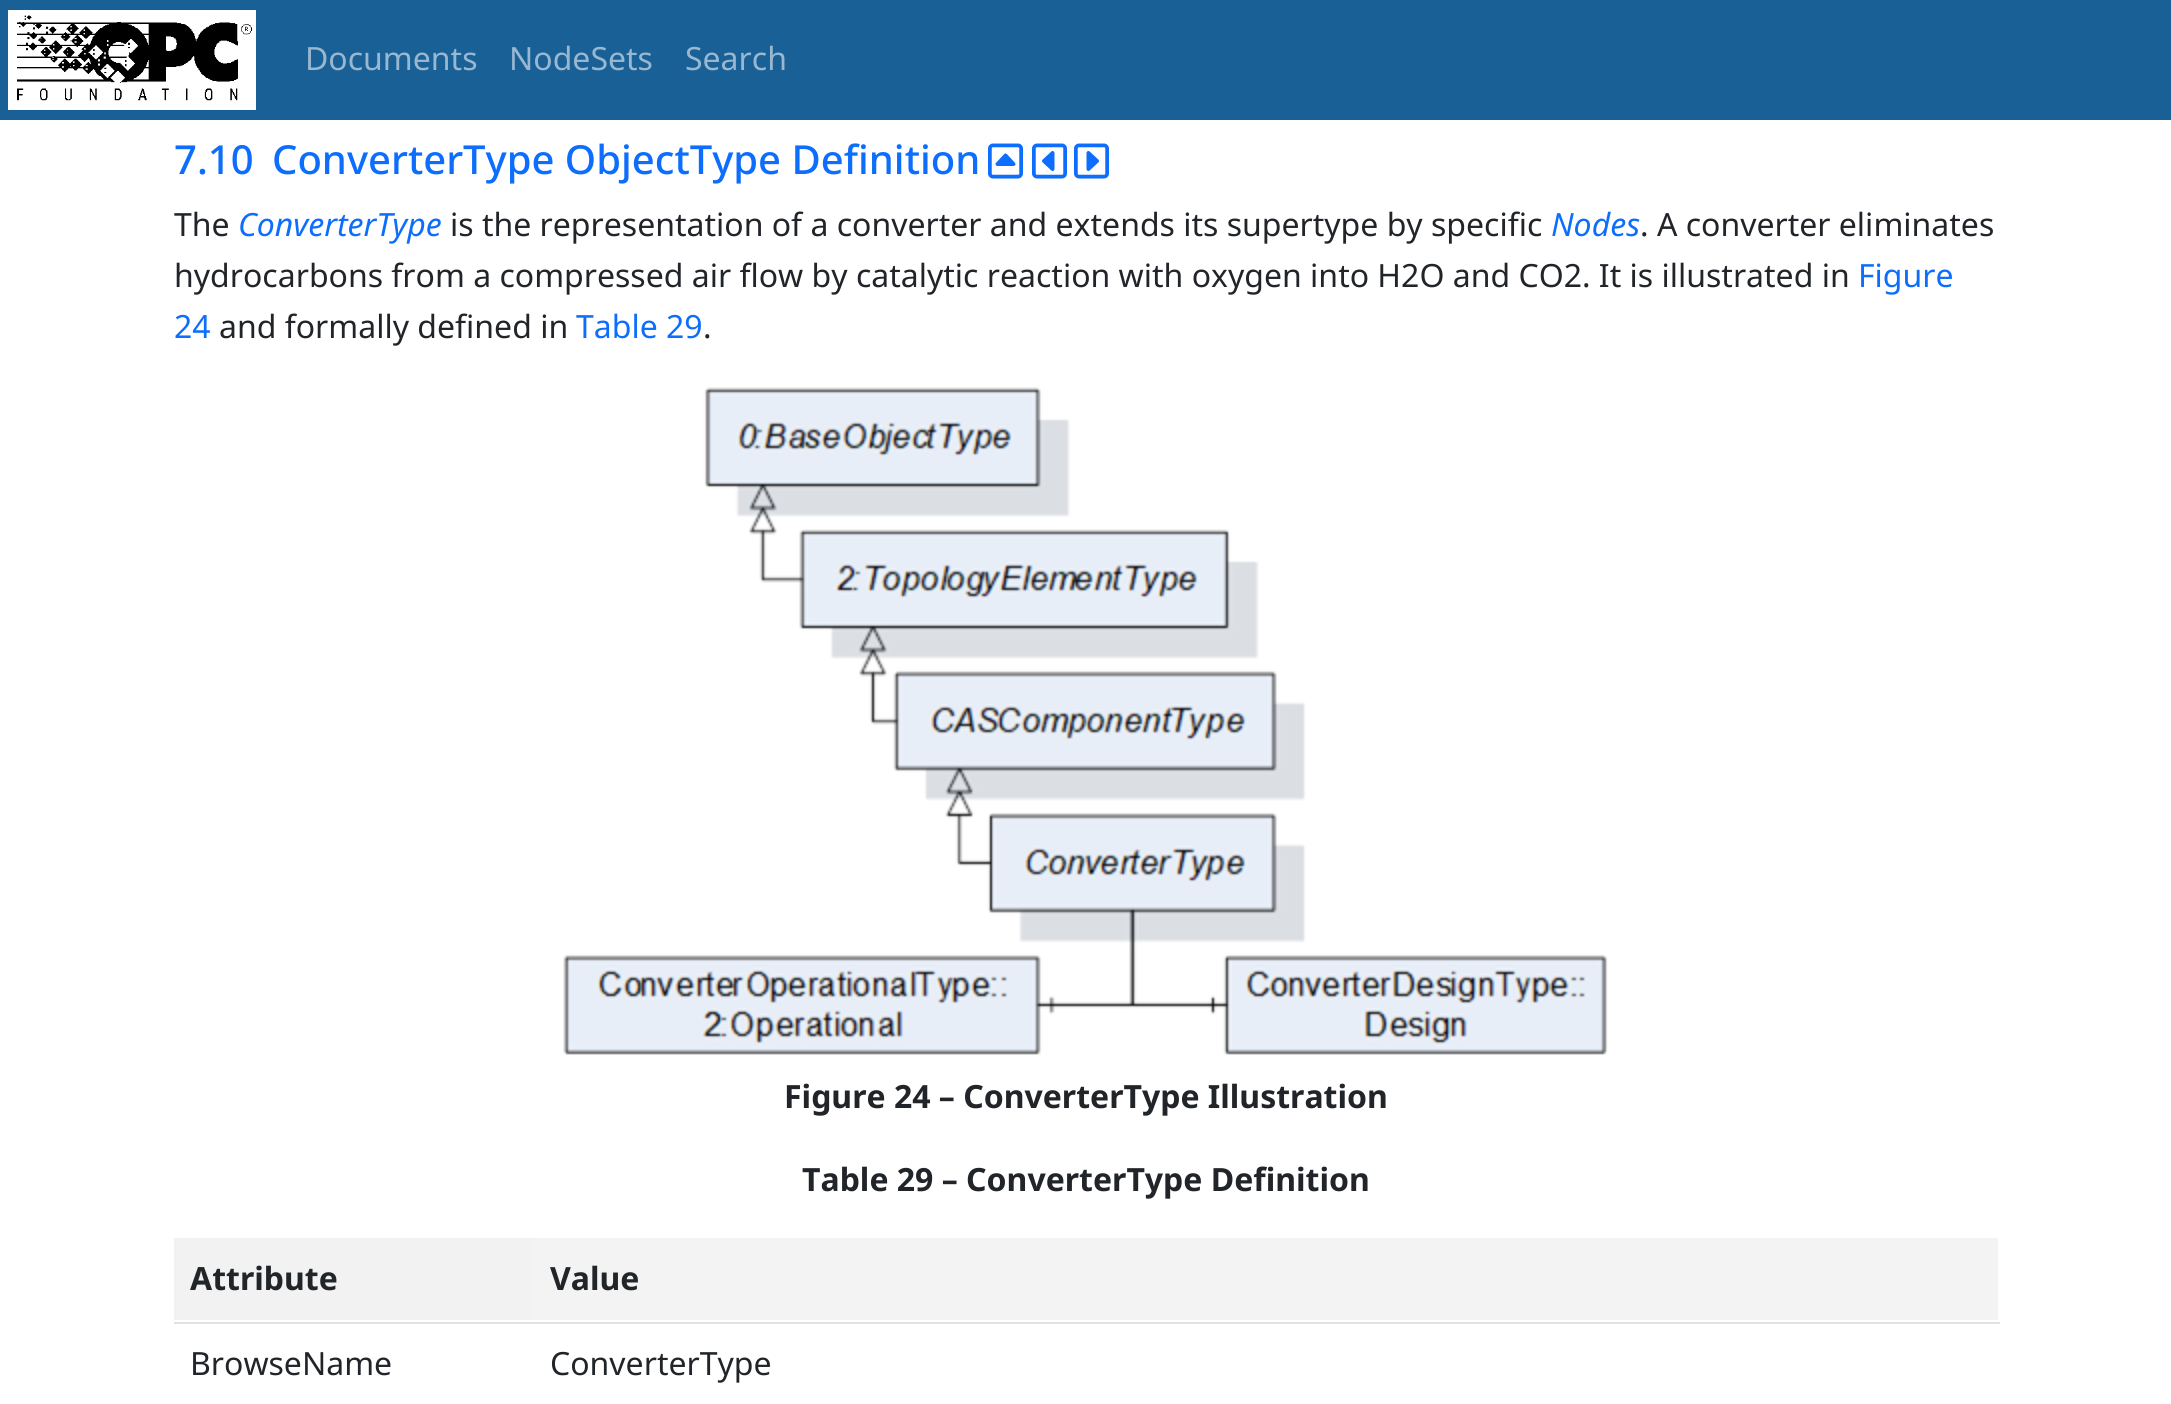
import math
import cairo



def draw_image(context, path, x, y, w, h):
    context.save()
    context.set_source_surface(cairo.ImageSurface.create_from_png(path), x, y)
    context.rectangle(x, y, w, h)
    context.fill()
    context.restore()


def draw(context):
    context.set_source_rgb(1, 1, 1)
    context.paint()
    context.set_source_rgb(25 / 255, 96 / 255, 150 / 255)
    context.rectangle(0, 0, 2171, 120)
    context.fill()
    draw_image(context, "images/1.png", 8, 10, 248, 100)
    draw_image(context, "images/2.png", 988, 143, 35, 36)
    draw_image(context, "images/3.png", 1032, 143, 35, 36)
    draw_image(context, "images/4.png", 1074, 143, 35, 36)
    draw_image(context, "images/5.png", 563, 387, 1045, 668)
    context.set_source_rgb(242 / 255, 242 / 255, 242 / 255)
    context.rectangle(174, 1238, 360, 82)
    context.fill()
    context.set_source_rgb(243 / 255, 243 / 255, 243 / 255)
    context.rectangle(534, 1238, 1464, 82)
    context.fill()
    context.set_source_rgb(222 / 255, 226 / 255, 230 / 255)
    context.rectangle(174, 1322, 1826, 2)
    context.fill()
    context.select_font_face("Noto Sans")
    context.set_font_size(32)
    context.set_source_rgb(152 / 255, 183 / 255, 208 / 255)
    context.move_to(305, 70)
    context.show_text("Documents")
    context.move_to(509, 70)
    context.show_text("NodeSets")
    context.move_to(685, 70)
    context.show_text("Search")
    context.select_font_face("Noto Sans Medium")
    context.set_font_size(40)
    context.set_source_rgb(13 / 255, 110 / 255, 253 / 255)
    context.move_to(174, 174)
    context.show_text("7.10")
    context.move_to(272, 174)
    context.show_text("ConverterType ObjectType Definition")
    context.select_font_face("Noto Sans")
    context.set_font_size(32)
    context.set_source_rgb(33 / 255, 37 / 255, 41 / 255)
    context.move_to(174, 236)
    context.show_text("The")
    context.select_font_face("Noto Sans", cairo.FontSlant.ITALIC)
    context.set_source_rgb(13 / 255, 110 / 255, 253 / 255)
    context.move_to(238, 236)
    context.show_text("ConverterType")
    context.select_font_face("Noto Sans")
    context.set_source_rgb(33 / 255, 37 / 255, 41 / 255)
    context.move_to(450, 236)
    context.show_text("is the representation of a converter and extends its supertype by specific")
    context.select_font_face("Noto Sans", cairo.FontSlant.ITALIC)
    context.set_source_rgb(13 / 255, 110 / 255, 253 / 255)
    context.move_to(1551, 236)
    context.show_text("Nodes")
    context.select_font_face("Noto Sans")
    context.set_source_rgb(33 / 255, 37 / 255, 41 / 255)
    context.move_to(1640, 236)
    context.show_text(". A converter eliminates")
    context.move_to(174, 287)
    context.show_text("hydrocarbons from a compressed air flow by catalytic reaction with oxygen into H2O and CO2. It is illustrated in")
    context.set_source_rgb(13 / 255, 110 / 255, 253 / 255)
    context.move_to(1858, 287)
    context.show_text("Figure")
    context.move_to(174, 338)
    context.show_text("24")
    context.set_source_rgb(33 / 255, 37 / 255, 41 / 255)
    context.move_to(219, 338)
    context.show_text("and formally defined in")
    context.set_source_rgb(13 / 255, 110 / 255, 253 / 255)
    context.move_to(576, 338)
    context.show_text("Table 29")
    context.set_source_rgb(33 / 255, 37 / 255, 41 / 255)
    context.move_to(703, 338)
    context.show_text(".")
    context.select_font_face("Noto Sans", cairo.FontSlant.NORMAL, cairo.FontWeight.BOLD)
    context.move_to(784, 1108)
    context.show_text("Figure 24 – ConverterType Illustration")
    context.move_to(802, 1191)
    context.show_text("Table 29 – ConverterType Definition")
    context.move_to(190, 1290)
    context.show_text("Attribute")
    context.move_to(550, 1290)
    context.show_text("Value")
    context.select_font_face("Noto Sans")
    context.move_to(190, 1375)
    context.show_text("BrowseName")
    context.move_to(550, 1375)
    context.show_text("ConverterType")


surface = cairo.ImageSurface(cairo.Format.RGB24, 2171, 1404)
context = cairo.Context(surface)
options = cairo.FontOptions()
options.set_hint_metrics(cairo.HintMetrics.OFF)
options.set_hint_style(cairo.HintStyle.NONE)
context.set_font_options(options)
context.set_miter_limit(4)
draw(context)
surface.write_to_png("out.png")
